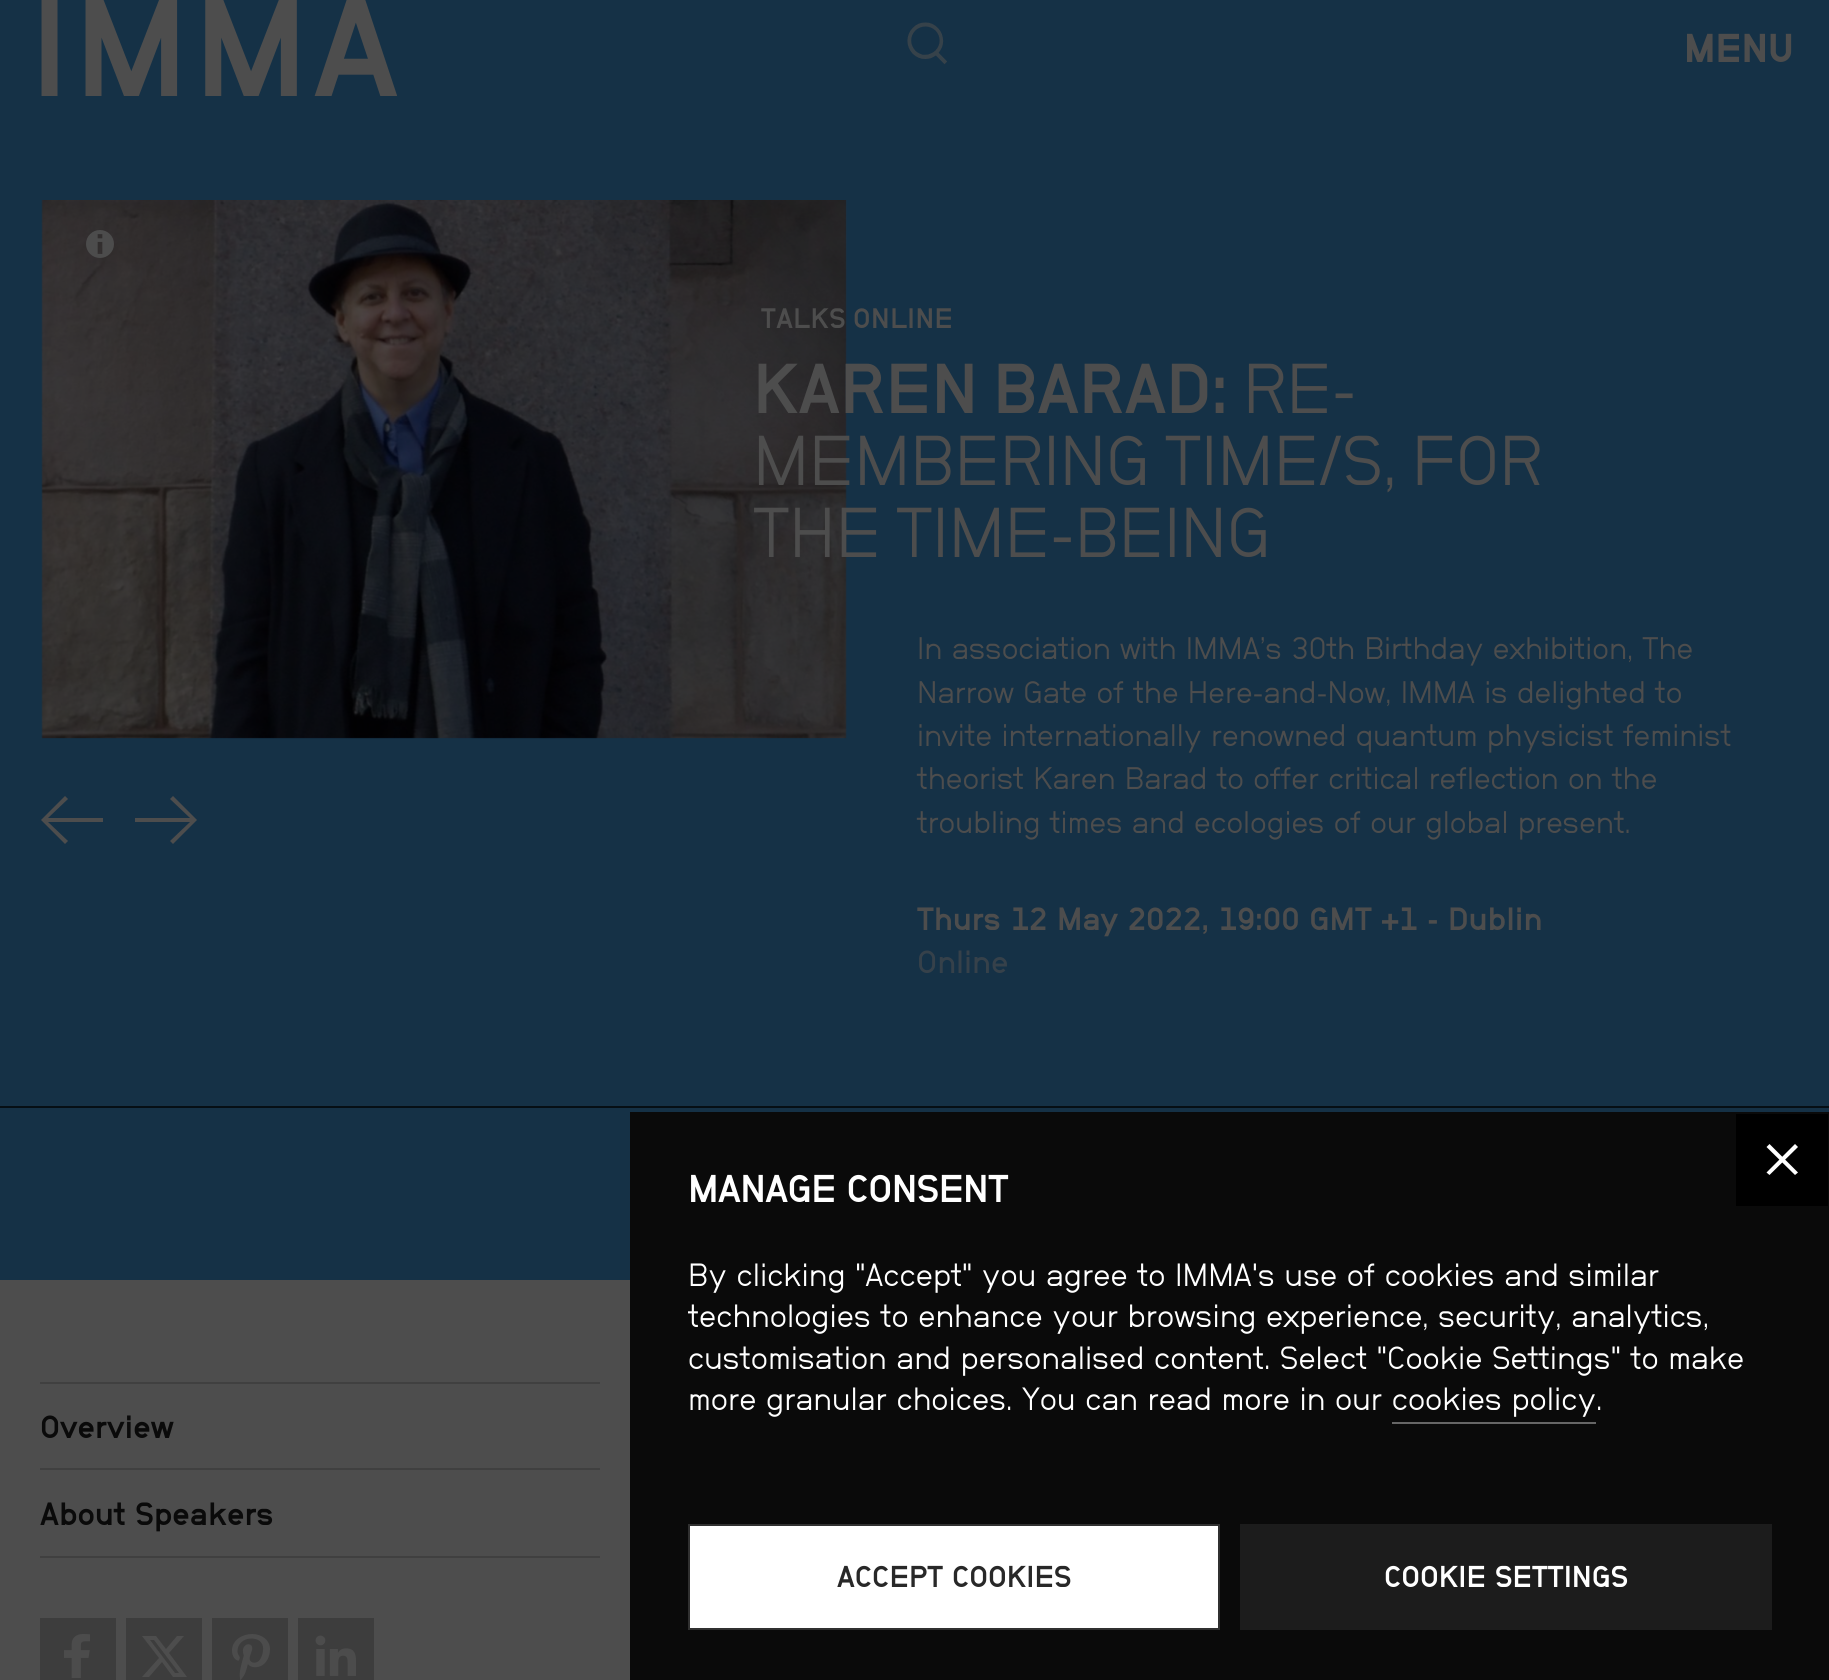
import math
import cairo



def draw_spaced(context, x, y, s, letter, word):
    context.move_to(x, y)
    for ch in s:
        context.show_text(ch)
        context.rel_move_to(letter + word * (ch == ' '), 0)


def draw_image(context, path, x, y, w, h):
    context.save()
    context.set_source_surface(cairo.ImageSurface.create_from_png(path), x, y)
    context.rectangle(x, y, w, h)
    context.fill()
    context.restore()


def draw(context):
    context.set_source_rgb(77 / 255, 77 / 255, 77 / 255)
    context.paint()
    context.set_source_rgb(21 / 255, 49 / 255, 70 / 255)
    context.rectangle(0, 0, 1829, 1280)
    context.fill()
    draw_image(context, "images/1.png", 907, 22, 40, 43)
    draw_image(context, "images/2.png", 41, 200, 806, 539)
    draw_image(context, "images/3.png", 86, 230, 28, 28)
    gradient = cairo.LinearGradient(496, 650, 896, 250)
    gradient.add_color_stop_rgba(0.5, 0, 0, 0, 0)
    gradient.add_color_stop_rgba(0.58, 0, 0, 0, 0)
    gradient.add_color_stop_rgba(1, 0, 0, 0, 0.2)
    context.set_source(gradient)
    context.rectangle(593, 200, 253, 240)
    context.fill()
    context.set_source_rgb(77 / 255, 77 / 255, 77 / 255)
    context.new_path()
    context.move_to(102, 818)
    context.line_to(48, 818)
    context.line_to(68, 799)
    context.line_to(65, 796)
    context.line_to(41, 820)
    context.line_to(65, 844)
    context.line_to(68, 841)
    context.line_to(48, 822)
    context.line_to(103, 822)
    context.line_to(103, 818)
    context.close_path()
    context.fill()
    context.new_path()
    context.move_to(136, 822)
    context.line_to(190, 822)
    context.line_to(170, 841)
    context.line_to(173, 844)
    context.line_to(197, 820)
    context.line_to(173, 796)
    context.line_to(170, 799)
    context.line_to(190, 818)
    context.line_to(135, 818)
    context.line_to(135, 822)
    context.close_path()
    context.fill()
    context.set_source_rgb(6 / 255, 15 / 255, 21 / 255)
    context.rectangle(0, 1106, 1829, 2)
    context.fill()
    context.set_source_rgb(64 / 255, 64 / 255, 64 / 255)
    context.rectangle(40, 1382, 560, 2)
    context.fill()
    context.rectangle(40, 1468, 560, 2)
    context.fill()
    context.rectangle(40, 1556, 560, 2)
    context.fill()
    context.set_source_rgb(61 / 255, 61 / 255, 61 / 255)
    context.rectangle(40, 1618, 76, 62)
    context.fill()
    draw_image(context, "images/4.png", 64, 1634, 26, 44)
    context.rectangle(126, 1618, 76, 62)
    context.fill()
    context.set_source_rgb(77 / 255, 77 / 255, 77 / 255)
    context.set_fill_rule(cairo.FillRule.EVEN_ODD)
    context.new_path()
    context.move_to(177, 1636)
    context.line_to(184, 1636)
    context.line_to(169, 1653)
    context.line_to(187, 1677)
    context.line_to(173, 1677)
    context.line_to(162, 1662)
    context.line_to(149, 1677)
    context.line_to(142, 1677)
    context.line_to(159, 1658)
    context.line_to(142, 1636)
    context.line_to(156, 1636)
    context.line_to(166, 1649)
    context.close_path()
    context.move_to(175, 1673)
    context.line_to(179, 1673)
    context.line_to(154, 1640)
    context.line_to(150, 1640)
    context.close_path()
    context.fill()
    context.set_source_rgb(61 / 255, 61 / 255, 61 / 255)
    context.rectangle(212, 1618, 76, 62)
    context.fill()
    draw_image(context, "images/5.png", 232, 1634, 38, 46)
    context.rectangle(298, 1618, 76, 62)
    context.fill()
    draw_image(context, "images/6.png", 315, 1635, 41, 41)
    context.set_source_rgb(10 / 255, 10 / 255, 10 / 255)
    context.rectangle(630, 1112, 1199, 568)
    context.fill()
    context.set_source_rgb(0, 0, 0)
    context.rectangle(1736, 1114, 92, 92)
    context.fill()
    context.set_source_rgb(1, 1, 1)
    context.set_fill_rule(cairo.FillRule.WINDING)
    context.new_path()
    context.move_to(1798, 1172.5)
    context.line_to(1795, 1175)
    context.line_to(1766.5, 1147)
    context.line_to(1769.5, 1144)
    context.close_path()
    context.fill()
    context.new_path()
    context.move_to(1795, 1144)
    context.line_to(1798, 1147)
    context.line_to(1769.5, 1175)
    context.line_to(1766.5, 1172.5)
    context.close_path()
    context.fill()
    context.set_source_rgb(102 / 255, 102 / 255, 102 / 255)
    context.rectangle(1392, 1422, 204, 2)
    context.fill()
    context.set_source_rgb(1, 1, 1)
    context.rectangle(689, 1525, 530, 104)
    context.fill_preserve()
    context.set_source_rgb(48 / 255, 48 / 255, 48 / 255)
    context.stroke()
    context.set_source_rgb(28 / 255, 28 / 255, 28 / 255)
    context.rectangle(1240, 1524, 532, 106)
    context.fill()
    context.select_font_face("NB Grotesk", cairo.FontSlant.NORMAL, cairo.FontWeight.BOLD)
    context.set_font_size(144)
    context.set_source_rgb(77 / 255, 77 / 255, 77 / 255)
    draw_spaced(context, 30, 96, "IMMA", 5, 0)
    context.select_font_face("NB Grotesk Black")
    context.set_font_size(40)
    context.move_to(1684, 62)
    context.show_text("MENU")
    context.select_font_face("NB Grotesk", cairo.FontSlant.NORMAL, cairo.FontWeight.BOLD)
    context.set_font_size(28)
    draw_spaced(context, 761, 328, "TALKS ONLINE", 0.5, -2)
    context.set_font_size(70)
    draw_spaced(context, 753, 413, "KAREN BARAD:", 0, -6)
    context.select_font_face("NB Grotesk")
    context.move_to(1243, 413)
    context.show_text("RE-")
    draw_spaced(context, 753, 485, "MEMBERING TIME/S, FOR", 0, -6)
    draw_spaced(context, 753, 557, "THE TIME-BEING", 0, -6)
    context.set_font_size(31)
    context.move_to(917, 659)
    context.show_text("In association with IMMA’s 30th Birthday exhibition, The")
    context.move_to(917, 703)
    context.show_text("Narrow Gate of the Here-and-Now, IMMA is delighted to")
    context.move_to(917, 746)
    context.show_text("invite internationally renowned quantum physicist feminist")
    context.move_to(917, 789)
    context.show_text("theorist Karen Barad to offer critical reflection on the")
    context.move_to(917, 833)
    context.show_text("troubling times and ecologies of our global present.")
    context.select_font_face("NB Grotesk", cairo.FontSlant.NORMAL, cairo.FontWeight.BOLD)
    context.set_font_size(32)
    context.move_to(917, 930)
    context.show_text("Thurs 12 May 2022, 19:00 GMT +1 - Dublin")
    context.select_font_face("NB Grotesk SemiBold")
    context.set_source_rgb(54 / 255, 65 / 255, 74 / 255)
    context.move_to(917, 973)
    context.show_text("Online")
    context.select_font_face("NB Grotesk", cairo.FontSlant.NORMAL, cairo.FontWeight.BOLD)
    context.set_source_rgb(10 / 255, 10 / 255, 10 / 255)
    context.move_to(40, 1438)
    context.show_text("Overview")
    context.move_to(40, 1525)
    context.show_text("About Speakers")
    context.set_font_size(38.5)
    context.set_source_rgb(1, 1, 1)
    draw_spaced(context, 688, 1202, "MANAGE CONSENT", -0.6, 0)
    context.select_font_face("NB Grotesk")
    context.set_font_size(32)
    context.move_to(688, 1286)
    context.show_text("By clicking \"Accept\" you agree to IMMA's use of cookies and similar")
    context.save()
    context.rectangle(688, 1256, 1084, 228)
    context.clip()
    context.move_to(688, 1327)
    context.show_text("technologies to enhance your browsing experience, security, analytics,")
    context.restore()
    context.move_to(688, 1369)
    context.show_text("customisation and personalised content. Select \"Cookie Settings\" to make")
    context.move_to(688, 1410)
    context.show_text("more granular choices. You can read more in our cookies policy.")
    context.select_font_face("NB Grotesk", cairo.FontSlant.NORMAL, cairo.FontWeight.BOLD)
    context.set_font_size(30)
    context.set_source_rgb(40 / 255, 40 / 255, 40 / 255)
    context.move_to(837, 1587)
    context.show_text("ACCEPT COOKIES")
    context.set_source_rgb(1, 1, 1)
    context.move_to(1384, 1587)
    context.show_text("COOKIE SETTINGS")


surface = cairo.ImageSurface(cairo.Format.RGB24, 1829, 1680)
context = cairo.Context(surface)
options = cairo.FontOptions()
options.set_hint_metrics(cairo.HintMetrics.OFF)
options.set_hint_style(cairo.HintStyle.NONE)
context.set_font_options(options)
context.set_miter_limit(4)
draw(context)
surface.write_to_png("out.png")
